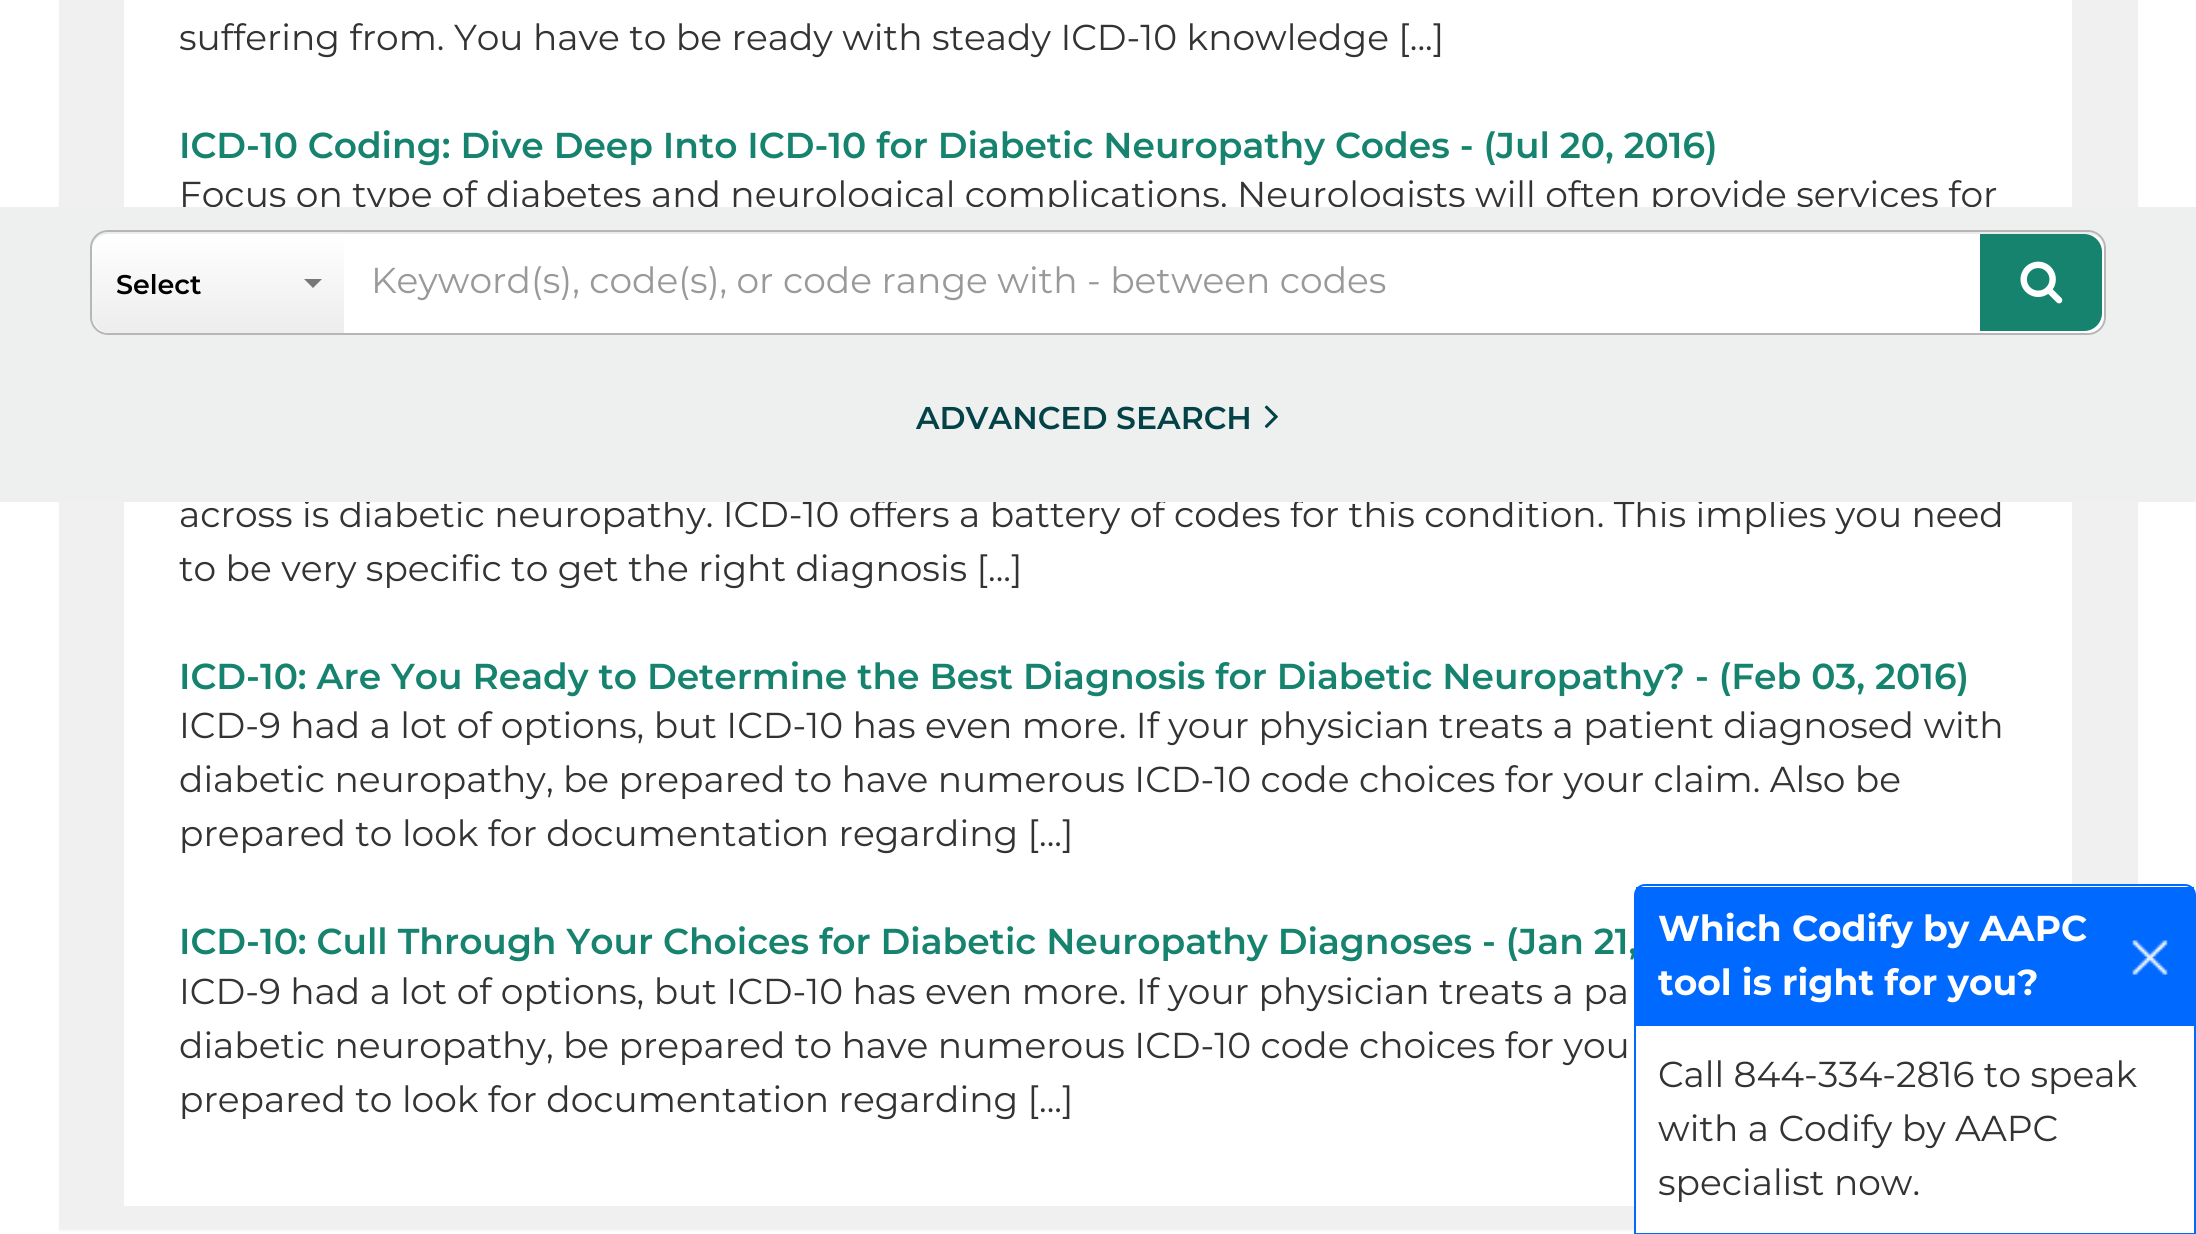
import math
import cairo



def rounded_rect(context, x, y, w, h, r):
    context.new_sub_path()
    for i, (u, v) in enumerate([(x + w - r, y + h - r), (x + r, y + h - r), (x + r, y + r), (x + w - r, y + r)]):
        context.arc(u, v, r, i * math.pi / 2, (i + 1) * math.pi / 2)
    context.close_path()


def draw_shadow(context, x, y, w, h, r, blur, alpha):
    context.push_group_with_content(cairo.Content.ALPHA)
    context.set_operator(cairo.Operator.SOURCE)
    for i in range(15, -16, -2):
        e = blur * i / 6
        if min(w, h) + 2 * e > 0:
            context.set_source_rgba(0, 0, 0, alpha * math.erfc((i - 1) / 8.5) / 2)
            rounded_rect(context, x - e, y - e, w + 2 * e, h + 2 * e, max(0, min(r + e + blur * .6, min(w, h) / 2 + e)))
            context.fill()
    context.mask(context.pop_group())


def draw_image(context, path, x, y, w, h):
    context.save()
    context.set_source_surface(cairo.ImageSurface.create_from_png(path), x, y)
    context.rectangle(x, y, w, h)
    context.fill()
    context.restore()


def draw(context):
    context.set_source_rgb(1, 1, 1)
    context.paint()
    context.set_source_rgb(0, 0, 0)
    draw_shadow(context, 59, -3, 2079, 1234, 0, 1, 0.05)
    context.set_source_rgb(240 / 255, 240 / 255, 240 / 255)
    context.rectangle(59, 0, 2079, 1229)
    context.fill()
    context.set_source_rgb(1, 1, 1)
    context.rectangle(124, 0, 1948, 1206)
    context.fill()
    context.select_font_face("Montserrat")
    context.set_font_size(36)
    context.set_source_rgb(51 / 255, 51 / 255, 51 / 255)
    context.move_to(179, 50)
    context.show_text("suffering from. You have to be ready with steady ICD-10 knowledge [...]")
    context.select_font_face("Montserrat SemiBold")
    context.set_source_rgb(22 / 255, 131 / 255, 111 / 255)
    context.move_to(179, 158)
    context.show_text("ICD-10 Coding: Dive Deep Into ICD-10 for Diabetic Neuropathy Codes - (Jul 20, 2016)")
    context.select_font_face("Montserrat")
    context.set_source_rgb(51 / 255, 51 / 255, 51 / 255)
    context.move_to(179, 207)
    context.show_text("Focus on type of diabetes and neurological complications. Neurologists will often provide services for")
    context.move_to(179, 527)
    context.show_text("across is diabetic neuropathy. ICD-10 offers a battery of codes for this condition. This implies you need")
    context.move_to(179, 581)
    context.show_text("to be very specific to get the right diagnosis [...]")
    context.select_font_face("Montserrat SemiBold")
    context.set_source_rgb(22 / 255, 131 / 255, 111 / 255)
    context.move_to(179, 689)
    context.show_text("ICD-10: Are You Ready to Determine the Best Diagnosis for Diabetic Neuropathy? - (Feb 03, 2016)")
    context.select_font_face("Montserrat")
    context.set_source_rgb(51 / 255, 51 / 255, 51 / 255)
    context.move_to(179, 738)
    context.show_text("ICD-9 had a lot of options, but ICD-10 has even more. If your physician treats a patient diagnosed with")
    context.move_to(179, 792)
    context.show_text("diabetic neuropathy, be prepared to have numerous ICD-10 code choices for your claim. Also be")
    context.move_to(179, 846)
    context.show_text("prepared to look for documentation regarding [...]")
    context.select_font_face("Montserrat SemiBold")
    context.set_source_rgb(22 / 255, 131 / 255, 111 / 255)
    context.move_to(179, 954)
    context.show_text("ICD-10: Cull Through Your Choices for Diabetic Neuropathy Diagnoses - (Jan 21,")
    context.select_font_face("Montserrat")
    context.set_source_rgb(51 / 255, 51 / 255, 51 / 255)
    context.move_to(179, 1004)
    context.show_text("ICD-9 had a lot of options, but ICD-10 has even more. If your physician treats a pa")
    context.move_to(179, 1058)
    context.show_text("diabetic neuropathy, be prepared to have numerous ICD-10 code choices for you")
    context.move_to(179, 1112)
    context.show_text("prepared to look for documentation regarding [...]")
    context.set_source_rgb(238 / 255, 240 / 255, 240 / 255)
    context.rectangle(0, 207, 2196, 295)
    context.fill()
    context.set_source_rgb(1, 1, 1)
    rounded_rect(context, 90, 230, 2016, 105, 18)
    context.fill()
    context.set_source_rgb(236 / 255, 236 / 255, 236 / 255)
    context.new_path()
    context.move_to(108, 234)
    context.line_to(2088, 234)
    context.curve_to(2097, 234, 2104, 241, 2104, 250)
    context.curve_to(2104, 240, 2098, 232, 2088, 232)
    context.line_to(108, 232)
    context.curve_to(98, 232, 92, 240, 92, 250)
    context.curve_to(92, 241, 99, 234, 108, 234)
    context.close_path()
    context.fill()
    rounded_rect(context, 91, 231, 2014, 103, 17)
    context.set_source_rgb(182 / 255, 182 / 255, 182 / 255)
    context.stroke()
    gradient = cairo.LinearGradient(218, 236, 218, 333)
    gradient.add_color_stop_rgba(0, 1, 1, 1, 1)
    gradient.add_color_stop_rgba(0.47, 246 / 255, 246 / 255, 246 / 255, 1)
    gradient.add_color_stop_rgba(1, 237 / 255, 237 / 255, 237 / 255, 1)
    context.set_source(gradient)
    context.new_path()
    context.move_to(110, 236)
    context.line_to(344, 236)
    context.line_to(344, 333)
    context.line_to(110, 333)
    context.curve_to(100, 333, 92, 325, 92, 315)
    context.line_to(92, 254)
    context.curve_to(92, 244, 100, 236, 110, 236)
    context.close_path()
    context.fill()
    context.set_source_rgb(119 / 255, 119 / 255, 119 / 255)
    context.new_path()
    context.move_to(304, 279)
    context.line_to(322, 279)
    context.line_to(313, 288)
    context.close_path()
    context.fill()
    context.select_font_face("Montserrat SemiBold")
    context.set_font_size(27)
    context.set_source_rgb(0, 0, 0)
    context.move_to(116, 294)
    context.show_text("Select")
    context.select_font_face("Montserrat")
    context.set_font_size(36)
    context.set_source_rgb(153 / 255, 153 / 255, 153 / 255)
    context.move_to(371, 293)
    context.show_text("Keyword(s), code(s), or code range with - between codes")
    context.set_source_rgb(22 / 255, 131 / 255, 111 / 255)
    context.new_path()
    context.move_to(1980, 234)
    context.line_to(2084, 234)
    context.curve_to(2094, 234, 2102, 242, 2102, 252)
    context.line_to(2102, 313)
    context.curve_to(2102, 323, 2094, 331, 2084, 331)
    context.line_to(1980, 331)
    context.close_path()
    context.fill()
    draw_image(context, "images/1.png", 2020, 261, 43, 43)
    context.select_font_face("Montserrat SemiBold")
    context.set_font_size(31.5)
    context.set_source_rgb(3 / 255, 66 / 255, 70 / 255)
    context.move_to(916, 429)
    context.show_text("ADVANCED SEARCH")
    draw_image(context, "images/2.png", 1264, 405, 14, 23)
    context.set_source_rgb(1, 1, 1)
    context.new_path()
    context.move_to(1645, 885)
    context.line_to(2185, 885)
    context.curve_to(2190.5, 885, 2195, 889.5, 2195, 895)
    context.line_to(2195, 1234)
    context.line_to(1635, 1234)
    context.line_to(1635, 895)
    context.curve_to(1635, 889.5, 1639.5, 885, 1645, 885)
    context.close_path()
    context.fill_preserve()
    context.set_source_rgb(0, 105 / 255, 1)
    context.stroke()
    context.rectangle(1636, 887, 558, 139)
    context.fill()
    context.select_font_face("Montserrat", cairo.FontSlant.NORMAL, cairo.FontWeight.BOLD)
    context.set_font_size(36)
    context.set_source_rgb(1, 1, 1)
    context.move_to(1658, 941)
    context.show_text("Which Codify by AAPC")
    draw_image(context, "images/3.png", 2132, 940, 36, 35)
    context.move_to(1658, 995)
    context.show_text("tool is right for you?")
    context.select_font_face("Montserrat")
    context.set_source_rgb(51 / 255, 51 / 255, 51 / 255)
    context.move_to(1658, 1087)
    context.show_text("Call 844-334-2816 to speak")
    context.move_to(1658, 1141)
    context.show_text("with a Codify by AAPC")
    context.move_to(1658, 1195)
    context.show_text("specialist now.")


surface = cairo.ImageSurface(cairo.Format.RGB24, 2196, 1234)
context = cairo.Context(surface)
options = cairo.FontOptions()
options.set_hint_metrics(cairo.HintMetrics.OFF)
options.set_hint_style(cairo.HintStyle.NONE)
context.set_font_options(options)
context.set_miter_limit(4)
draw(context)
surface.write_to_png("out.png")
